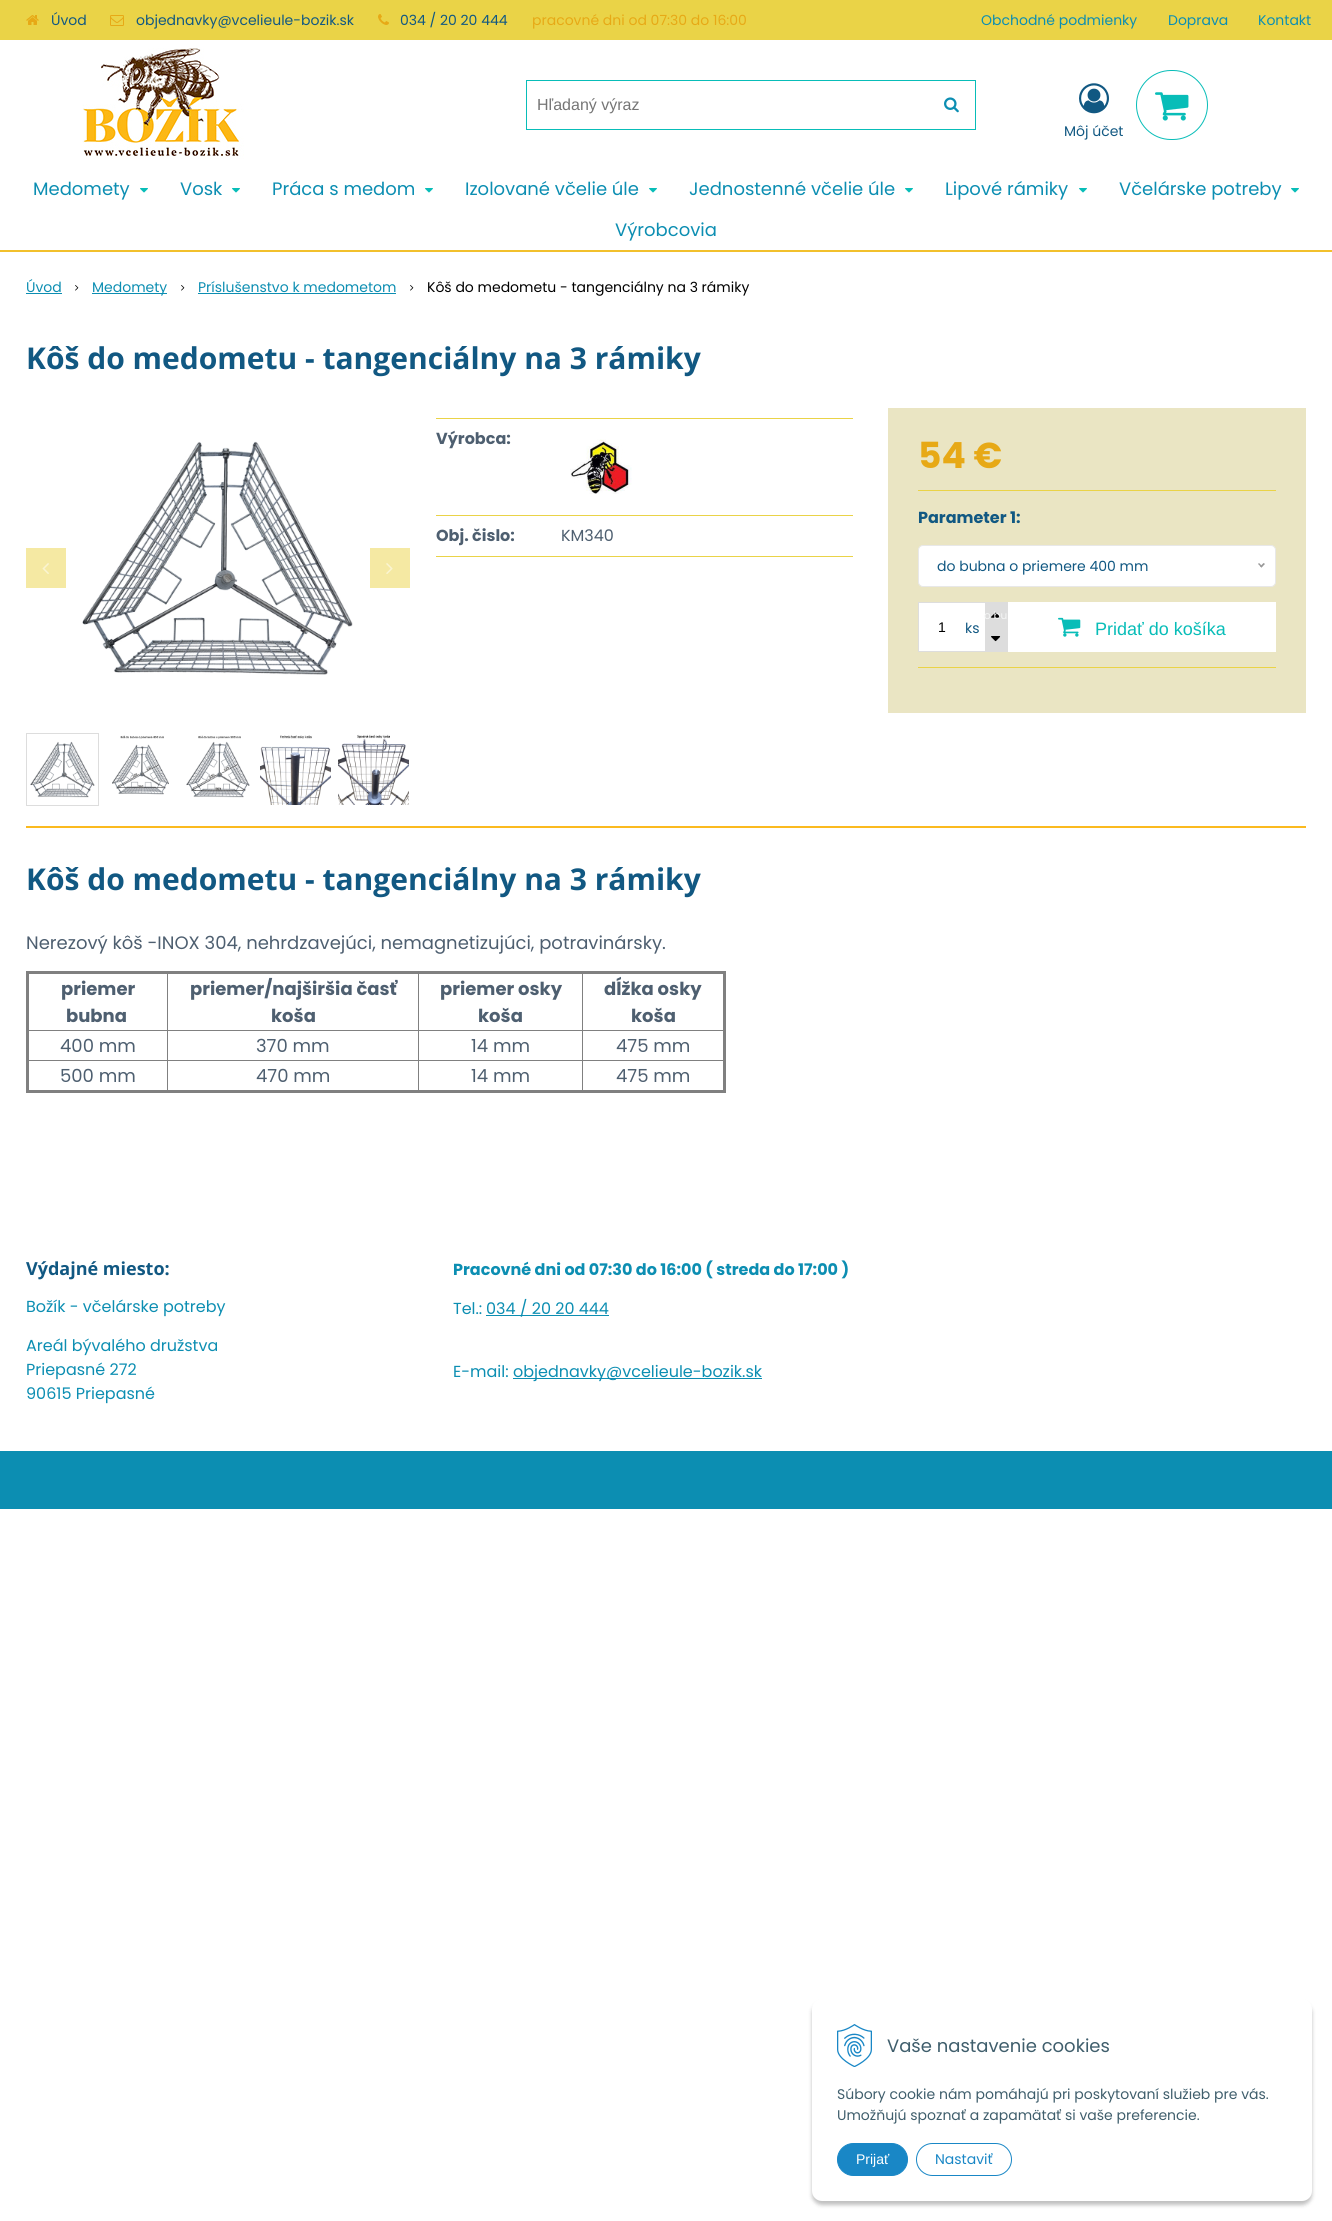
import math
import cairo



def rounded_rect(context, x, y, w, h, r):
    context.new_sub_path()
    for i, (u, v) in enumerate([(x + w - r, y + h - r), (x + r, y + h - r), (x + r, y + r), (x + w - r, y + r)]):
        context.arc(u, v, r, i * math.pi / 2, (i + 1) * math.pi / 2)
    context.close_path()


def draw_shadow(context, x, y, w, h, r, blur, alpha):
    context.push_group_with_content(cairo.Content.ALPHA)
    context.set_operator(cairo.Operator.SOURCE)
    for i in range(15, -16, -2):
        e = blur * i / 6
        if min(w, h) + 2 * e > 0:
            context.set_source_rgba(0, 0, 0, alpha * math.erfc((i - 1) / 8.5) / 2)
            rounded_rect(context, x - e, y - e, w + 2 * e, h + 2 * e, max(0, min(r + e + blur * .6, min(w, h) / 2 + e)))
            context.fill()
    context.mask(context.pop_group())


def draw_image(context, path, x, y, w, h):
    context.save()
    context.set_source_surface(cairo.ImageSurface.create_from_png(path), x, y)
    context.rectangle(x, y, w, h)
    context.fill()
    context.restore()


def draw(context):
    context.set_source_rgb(1, 1, 1)
    context.paint()
    context.set_source_rgb(234 / 255, 211 / 255, 71 / 255)
    context.rectangle(0, 0, 1332, 40)
    context.fill()
    draw_image(context, "images/1.png", 26, 15, 13, 10)
    draw_image(context, "images/2.png", 110, 15, 14, 11)
    draw_image(context, "images/3.png", 378, 14, 11, 11)
    draw_image(context, "images/4.png", 82, 48, 162, 111)
    context.rectangle(526.5, 80.5, 449, 49)
    context.set_source_rgb(8 / 255, 189 / 255, 184 / 255)
    context.set_line_width(1)
    context.stroke()
    draw_image(context, "images/5.png", 944, 97, 15, 16)
    rounded_rect(context, 1136.5, 70.5, 71, 69, 34.5)
    context.stroke()
    draw_image(context, "images/6.png", 1155, 92, 34, 29)
    draw_image(context, "images/7.png", 1079, 83, 30, 31)
    context.set_source_rgb(242 / 255, 192 / 255, 44 / 255)
    context.rectangle(0, 250, 1332, 2)
    context.fill()
    draw_image(context, "images/8.png", 140, 188, 8, 5)
    draw_image(context, "images/8.png", 232, 188, 8, 5)
    draw_image(context, "images/8.png", 425, 188, 8, 5)
    draw_image(context, "images/8.png", 649, 188, 8, 5)
    draw_image(context, "images/8.png", 905, 188, 8, 5)
    draw_image(context, "images/8.png", 1079, 188, 8, 5)
    draw_image(context, "images/8.png", 1291, 188, 8, 5)
    context.set_source_rgb(12 / 255, 142 / 255, 178 / 255)
    context.rectangle(26, 293, 36, 1)
    context.fill()
    draw_image(context, "images/9.png", 75, 285, 4, 6)
    context.rectangle(92, 293, 75, 1)
    context.fill()
    draw_image(context, "images/9.png", 181, 285, 4, 6)
    context.rectangle(198, 293, 198, 1)
    context.fill()
    draw_image(context, "images/9.png", 410, 285, 4, 6)
    draw_image(context, "images/10.png", 82, 441, 271, 234)
    context.set_source_rgb(245 / 255, 233 / 255, 163 / 255)
    context.rectangle(26, 548, 40, 40)
    context.fill()
    draw_image(context, "images/11.png", 42, 563, 7, 11)
    context.rectangle(370, 548, 40, 40)
    context.fill()
    draw_image(context, "images/12.png", 386, 563, 7, 11)
    context.rectangle(26.5, 733.5, 72, 72)
    context.set_source_rgb(221 / 255, 221 / 255, 221 / 255)
    context.stroke()
    draw_image(context, "images/13.png", 30, 741, 65, 57)
    draw_image(context, "images/14.png", 112, 735, 57, 60)
    draw_image(context, "images/15.png", 186, 735, 64, 63)
    draw_image(context, "images/16.png", 260, 735, 71, 70)
    draw_image(context, "images/17.png", 338, 734, 71, 71)
    context.set_source_rgb(234 / 255, 211 / 255, 71 / 255)
    context.rectangle(436, 556, 417, 1)
    context.fill()
    context.rectangle(436, 418, 417, 1)
    context.fill()
    draw_image(context, "images/18.png", 570, 439, 62, 55)
    context.rectangle(436, 515, 417, 1)
    context.fill()
    context.set_source_rgb(234 / 255, 229 / 255, 195 / 255)
    context.rectangle(888, 408, 418, 305)
    context.fill()
    context.set_source_rgb(234 / 255, 211 / 255, 71 / 255)
    context.rectangle(918, 490, 358, 1)
    context.fill()
    context.set_source_rgb(1, 1, 1)
    rounded_rect(context, 918.5, 545.5, 357, 41, 4.5)
    context.fill_preserve()
    context.set_source_rgb(232 / 255, 232 / 255, 232 / 255)
    context.stroke()
    context.set_source_rgb(153 / 255, 153 / 255, 153 / 255)
    context.new_path()
    context.move_to(1263.5, 563)
    context.line_to(1265, 564)
    context.line_to(1261.5, 567.5)
    context.line_to(1260, 566.5)
    context.close_path()
    context.fill()
    context.new_path()
    context.move_to(1259, 563)
    context.line_to(1262.5, 566.5)
    context.line_to(1261.5, 567.5)
    context.line_to(1258, 564)
    context.close_path()
    context.fill()
    context.set_source_rgb(1, 1, 1)
    context.rectangle(919, 603, 66, 48)
    context.fill()
    context.rectangle(918.5, 602.5, 89, 49)
    context.set_source_rgb(221 / 255, 221 / 255, 221 / 255)
    context.stroke()
    context.rectangle(985, 603, 22, 48)
    context.fill()
    draw_image(context, "images/19.png", 991, 612, 10, 6)
    draw_image(context, "images/20.png", 991, 636, 10, 6)
    context.set_source_rgb(1, 1, 1)
    context.rectangle(1008, 602, 268, 50)
    context.fill()
    draw_image(context, "images/21.png", 1058, 617, 23, 20)
    context.set_source_rgb(234 / 255, 211 / 255, 71 / 255)
    context.rectangle(918, 667, 358, 1)
    context.fill()
    context.set_source_rgb(251 / 255, 186 / 255, 31 / 255)
    context.rectangle(26, 826, 1280, 2)
    context.fill()
    context.set_source_rgb(128 / 255, 128 / 255, 128 / 255)
    context.rectangle(582, 1030, 143, 1)
    context.fill()
    context.rectangle(582, 1060, 143, 1)
    context.fill()
    context.rectangle(582, 1060, 1, 32)
    context.fill()
    context.rectangle(418, 1060, 165, 1)
    context.fill()
    context.rectangle(582, 1030, 1, 31)
    context.fill()
    context.rectangle(418, 1030, 165, 1)
    context.fill()
    context.rectangle(418, 1060, 1, 32)
    context.fill()
    context.rectangle(167, 1060, 252, 1)
    context.fill()
    context.rectangle(418, 1030, 1, 31)
    context.fill()
    context.rectangle(167, 1030, 252, 1)
    context.fill()
    context.rectangle(167, 1060, 1, 32)
    context.fill()
    context.rectangle(27, 1060, 141, 1)
    context.fill()
    context.rectangle(167, 1030, 1, 31)
    context.fill()
    context.rectangle(27, 1030, 141, 1)
    context.fill()
    context.rectangle(167, 972, 1, 59)
    context.fill()
    context.rectangle(418, 972, 1, 59)
    context.fill()
    context.rectangle(582, 972, 1, 59)
    context.fill()
    context.rectangle(26, 971, 700, 3)
    context.fill()
    context.rectangle(723, 971, 3, 122)
    context.fill()
    context.rectangle(26, 1090, 700, 3)
    context.fill()
    context.rectangle(26, 971, 3, 122)
    context.fill()
    context.set_source_rgb(12 / 255, 142 / 255, 178 / 255)
    context.rectangle(486, 1315, 123, 1)
    context.fill()
    context.rectangle(513, 1378, 249, 1)
    context.fill()
    context.rectangle(0, 1451, 1332, 58)
    context.fill()
    context.set_source_rgb(0, 0, 0)
    draw_shadow(context, 812, 2003, 500, 202, 10, 2, 0.25)
    context.set_source_rgb(1, 1, 1)
    rounded_rect(context, 812, 1999, 500, 202, 10)
    context.fill()
    draw_image(context, "images/22.png", 837, 2024, 35, 43)
    context.set_source_rgb(25 / 255, 135 / 255, 198 / 255)
    rounded_rect(context, 837.5, 2143.5, 70, 32, 16)
    context.fill_preserve()
    context.stroke()
    rounded_rect(context, 916.5, 2143.5, 95, 32, 16)
    context.stroke()
    context.select_font_face("Poppins")
    context.set_font_size(14)
    context.set_source_rgb(17 / 255, 88 / 255, 130 / 255)
    context.move_to(51, 25)
    context.show_text("Úvod")
    context.move_to(136, 25)
    context.show_text("objednavky@vcelieule-bozik.sk")
    context.move_to(400, 25)
    context.show_text("034 / 20 20 444")
    context.set_source_rgb(231 / 255, 169 / 255, 22 / 255)
    context.move_to(532, 25)
    context.show_text("pracovné dni od 07:30 do 16:00")
    context.set_source_rgb(12 / 255, 142 / 255, 178 / 255)
    context.move_to(981, 25)
    context.show_text("Obchodné podmienky")
    context.move_to(1168, 25)
    context.show_text("Doprava")
    context.move_to(1258, 25)
    context.show_text("Kontakt")
    context.select_font_face("Liberation Sans")
    context.set_font_size(16)
    context.set_source_rgb(117 / 255, 117 / 255, 117 / 255)
    context.move_to(537, 110)
    context.show_text("Hľadaný výraz")
    context.select_font_face("Poppins")
    context.set_font_size(14)
    context.set_source_rgb(17 / 255, 88 / 255, 130 / 255)
    context.move_to(1064, 136)
    context.show_text("Môj účet")
    context.set_font_size(18)
    context.set_source_rgb(12 / 255, 142 / 255, 178 / 255)
    context.move_to(33, 195)
    context.show_text("Medomety")
    context.move_to(180, 195)
    context.show_text("Vosk")
    context.move_to(272, 195)
    context.show_text("Práca s medom")
    context.move_to(465, 195)
    context.show_text("Izolované včelie úle")
    context.move_to(689, 195)
    context.show_text("Jednostenné včelie úle")
    context.move_to(945, 195)
    context.show_text("Lipové rámiky")
    context.move_to(1119, 195)
    context.show_text("Včelárske potreby")
    context.move_to(615, 236)
    context.show_text("Výrobcovia")
    context.set_font_size(14)
    context.move_to(26, 292)
    context.show_text("Úvod")
    context.move_to(92, 292)
    context.show_text("Medomety")
    context.move_to(198, 292)
    context.show_text("Príslušenstvo k medometom")
    context.set_source_rgb(0, 0, 0)
    context.move_to(427, 292)
    context.show_text("Kôš do medometu - tangenciálny na 3 rámiky")
    context.select_font_face("Open Sans", cairo.FontSlant.NORMAL, cairo.FontWeight.BOLD)
    context.set_font_size(30)
    context.set_source_rgb(17 / 255, 88 / 255, 130 / 255)
    context.move_to(26, 369)
    context.show_text("Kôš do medometu - tangenciálny na 3 rámiky")
    context.select_font_face("Poppins", cairo.FontSlant.NORMAL, cairo.FontWeight.BOLD)
    context.set_font_size(16)
    context.set_source_rgb(78 / 255, 95 / 255, 112 / 255)
    context.move_to(436, 444)
    context.show_text("Výrobca:")
    context.move_to(436, 541)
    context.show_text("Obj. čislo:")
    context.select_font_face("Poppins")
    context.move_to(561, 541)
    context.show_text("KM340")
    context.select_font_face("Poppins", cairo.FontSlant.NORMAL, cairo.FontWeight.BOLD)
    context.set_font_size(36)
    context.set_source_rgb(231 / 255, 169 / 255, 22 / 255)
    context.move_to(918, 468)
    context.show_text("54 €")
    context.set_font_size(16)
    context.set_source_rgb(17 / 255, 88 / 255, 130 / 255)
    context.move_to(918, 523)
    context.show_text("Parameter 1:")
    context.select_font_face("Poppins")
    context.set_font_size(14)
    context.move_to(937, 571)
    context.show_text("do bubna o priemere 400 mm")
    context.set_font_size(10.5)
    context.set_source_rgb(244 / 255, 245 / 255, 245 / 255)
    context.move_to(984, 619)
    context.show_text("o bu")
    context.select_font_face("Liberation Sans")
    context.set_font_size(14)
    context.set_source_rgb(0, 0, 0)
    context.move_to(938, 632)
    context.show_text("1")
    context.select_font_face("Poppins")
    context.set_source_rgb(17 / 255, 88 / 255, 130 / 255)
    context.move_to(965, 633)
    context.show_text("ks")
    context.select_font_face("Liberation Sans")
    context.set_font_size(18)
    context.set_source_rgb(8 / 255, 189 / 255, 184 / 255)
    context.move_to(1095, 635)
    context.show_text("Pridať do košíka")
    context.select_font_face("Open Sans", cairo.FontSlant.NORMAL, cairo.FontWeight.BOLD)
    context.set_font_size(30)
    context.set_source_rgb(17 / 255, 88 / 255, 130 / 255)
    context.move_to(26, 890)
    context.show_text("Kôš do medometu - tangenciálny na 3 rámiky")
    context.select_font_face("Poppins")
    context.set_font_size(18)
    context.set_source_rgb(78 / 255, 95 / 255, 112 / 255)
    context.move_to(26, 949)
    context.show_text("Nerezový kôš -INOX 304, nehrdzavejúci, nemagnetizujúci, potravinársky.")
    context.select_font_face("Poppins", cairo.FontSlant.NORMAL, cairo.FontWeight.BOLD)
    context.move_to(61, 995)
    context.show_text("priemer")
    context.move_to(66, 1022)
    context.show_text("bubna")
    context.move_to(190, 995)
    context.show_text("priemer/najširšia časť")
    context.move_to(271, 1022)
    context.show_text("koša")
    context.move_to(440, 995)
    context.show_text("priemer osky")
    context.move_to(478, 1022)
    context.show_text("koša")
    context.move_to(604, 995)
    context.show_text("dĺžka osky")
    context.move_to(631, 1022)
    context.show_text("koša")
    context.select_font_face("Poppins")
    context.move_to(60, 1052)
    context.show_text("400 mm")
    context.move_to(256, 1052)
    context.show_text("370 mm")
    context.move_to(471, 1052)
    context.show_text("14 mm")
    context.move_to(616, 1052)
    context.show_text("475 mm")
    context.move_to(60, 1082)
    context.show_text("500 mm")
    context.move_to(256, 1082)
    context.show_text("470 mm")
    context.move_to(471, 1082)
    context.show_text("14 mm")
    context.move_to(616, 1082)
    context.show_text("475 mm")
    context.select_font_face("Open Sans", cairo.FontSlant.NORMAL, cairo.FontWeight.BOLD)
    context.set_source_rgb(17 / 255, 88 / 255, 130 / 255)
    context.move_to(26, 1275)
    context.show_text("Výdajné miesto:")
    context.select_font_face("Poppins")
    context.set_font_size(16)
    context.set_source_rgb(12 / 255, 142 / 255, 178 / 255)
    context.move_to(26, 1312)
    context.show_text("Božík - včelárske potreby")
    context.move_to(26, 1351)
    context.show_text("Areál bývalého družstva")
    context.move_to(26, 1375)
    context.show_text("Priepasné 272")
    context.move_to(26, 1399)
    context.show_text("90615 Priepasné")
    context.select_font_face("Poppins", cairo.FontSlant.NORMAL, cairo.FontWeight.BOLD)
    context.move_to(453, 1275)
    context.show_text("Pracovné dni od 07:30 do 16:00 ( streda do 17:00 )")
    context.select_font_face("Poppins")
    context.move_to(453, 1314)
    context.show_text("Tel.:")
    context.move_to(486, 1314)
    context.show_text("034 / 20 20 444")
    context.move_to(453, 1377)
    context.show_text("E-mail:")
    context.move_to(513, 1377)
    context.show_text("objednavky@vcelieule-bozik.sk")
    context.set_font_size(18)
    context.set_source_rgb(63 / 255, 94 / 255, 108 / 255)
    context.move_to(887, 2052)
    context.show_text("Vaše nastavenie cookies")
    context.set_font_size(14)
    context.move_to(837, 2099)
    context.show_text("Súbory cookie nám pomáhajú pri poskytovaní služieb pre vás.")
    context.move_to(837, 2120)
    context.show_text("Umožňujú spoznať a zapamätať si vaše preferencie.")
    context.select_font_face("Liberation Sans")
    context.set_source_rgb(1, 1, 1)
    context.move_to(856, 2164)
    context.show_text("Prijať")
    context.select_font_face("Poppins")
    context.set_source_rgb(25 / 255, 135 / 255, 198 / 255)
    context.move_to(935, 2164)
    context.show_text("Nastaviť")


surface = cairo.ImageSurface(cairo.Format.RGB24, 1332, 2221)
context = cairo.Context(surface)
options = cairo.FontOptions()
options.set_hint_metrics(cairo.HintMetrics.OFF)
options.set_hint_style(cairo.HintStyle.NONE)
context.set_font_options(options)
context.set_miter_limit(4)
draw(context)
surface.write_to_png("out.png")
